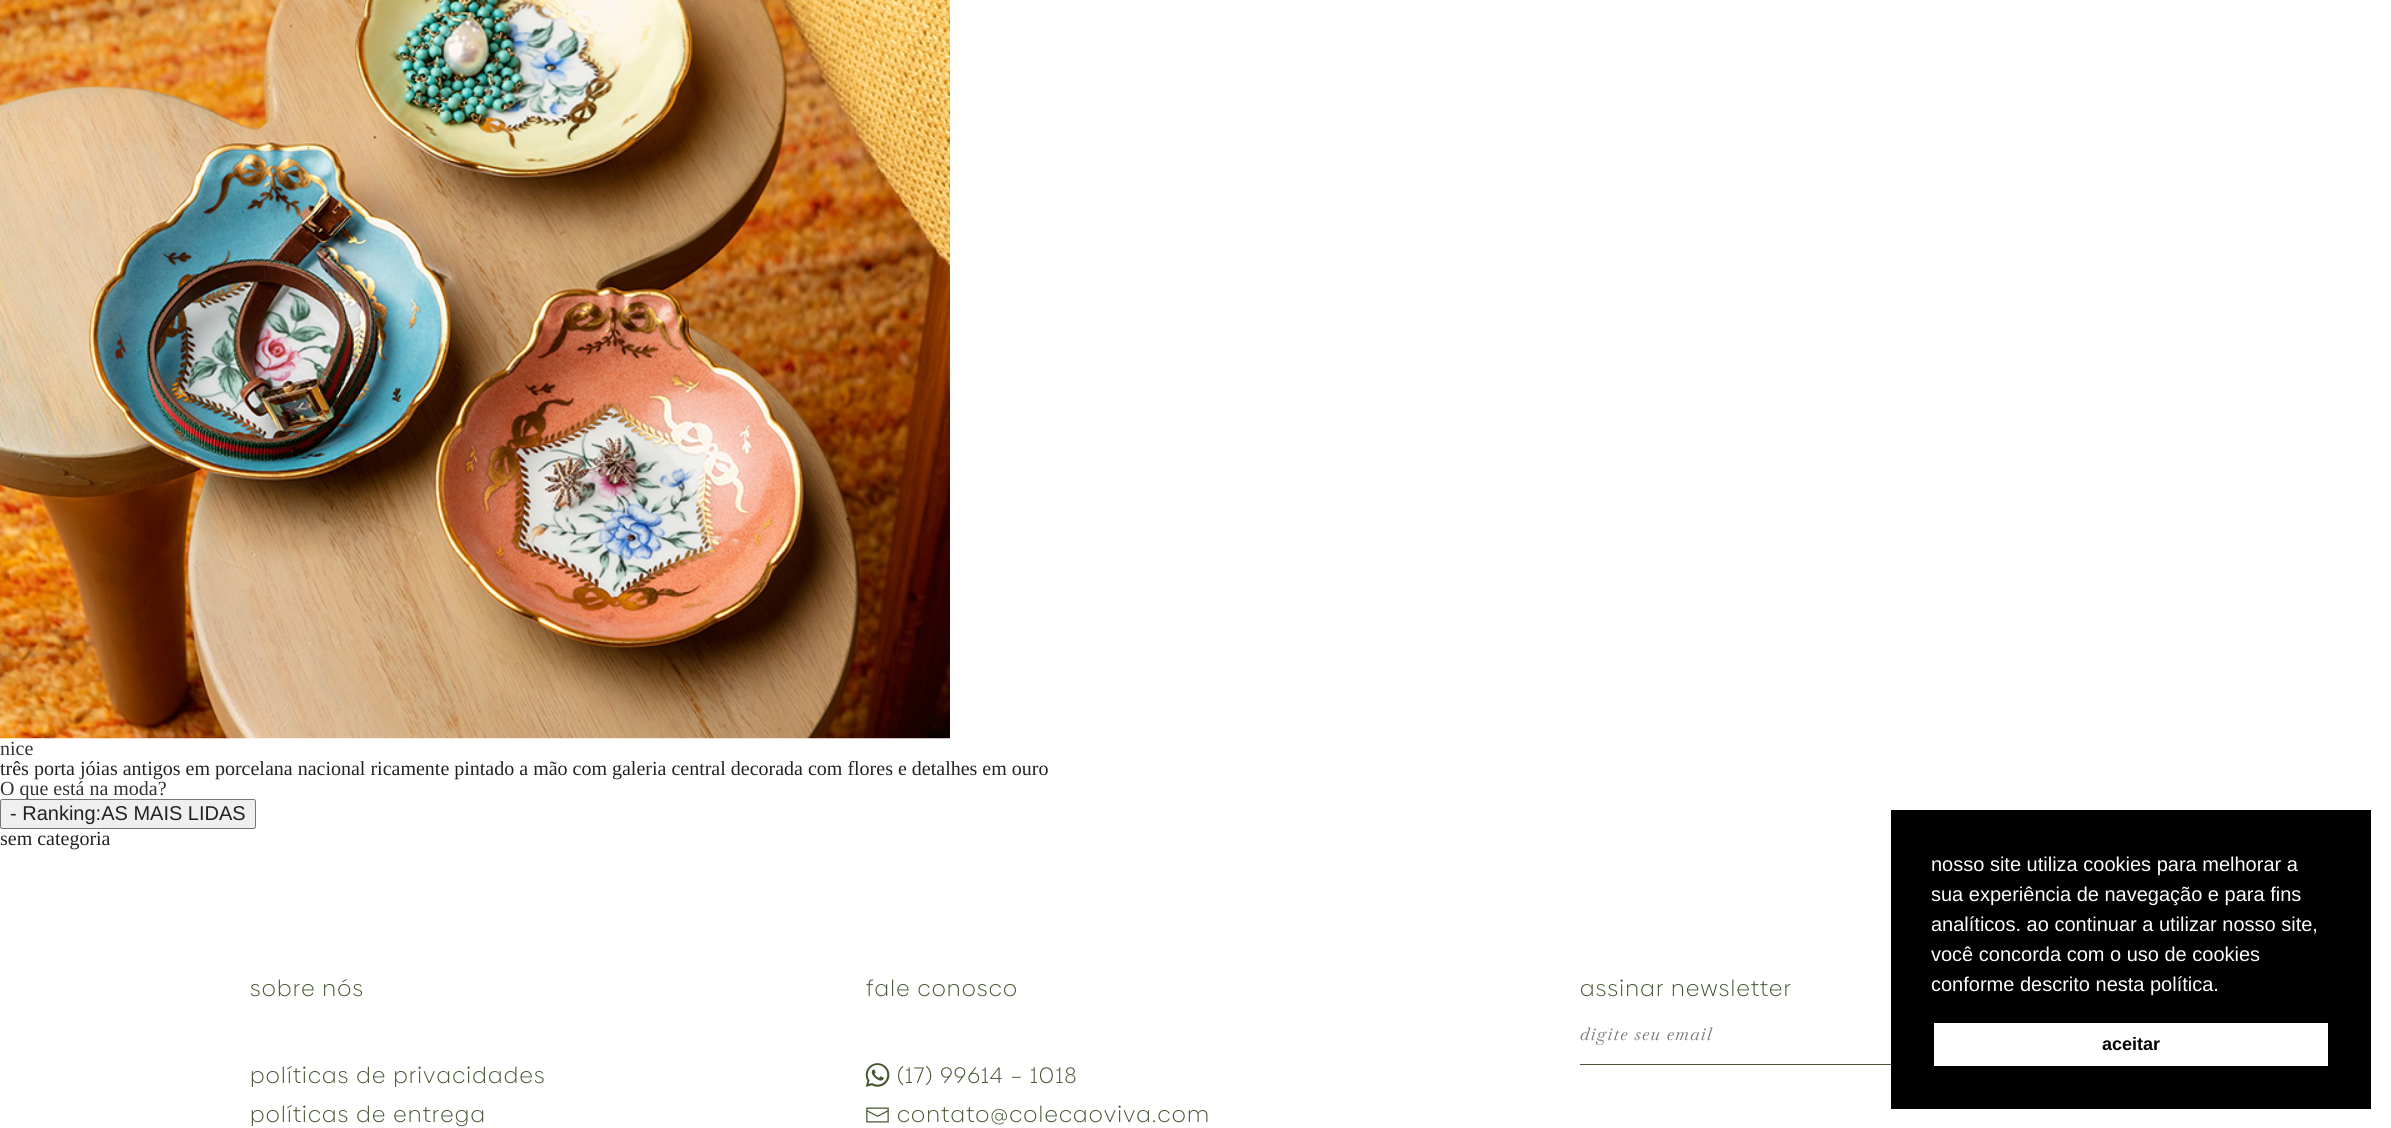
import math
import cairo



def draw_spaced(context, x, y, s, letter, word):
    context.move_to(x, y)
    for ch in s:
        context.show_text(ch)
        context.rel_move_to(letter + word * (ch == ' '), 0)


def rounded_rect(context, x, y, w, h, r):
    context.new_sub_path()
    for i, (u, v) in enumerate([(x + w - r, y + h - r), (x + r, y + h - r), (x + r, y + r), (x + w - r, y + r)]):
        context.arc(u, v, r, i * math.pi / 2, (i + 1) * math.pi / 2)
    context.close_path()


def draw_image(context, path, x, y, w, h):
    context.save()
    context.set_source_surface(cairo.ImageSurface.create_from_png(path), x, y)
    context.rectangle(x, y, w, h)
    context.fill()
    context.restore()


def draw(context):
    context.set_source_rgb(1, 1, 1)
    context.paint()
    draw_image(context, "images/1.png", 0, 0, 950, 739)
    draw_image(context, "images/2.png", 865, 1063, 25, 24)
    draw_image(context, "images/3.png", 866, 1107, 23, 16)
    context.set_source_rgb(70 / 255, 86 / 255, 49 / 255)
    context.rectangle(1580, 1064, 311, 1)
    context.fill()
    context.set_source_rgb(0, 0, 0)
    context.rectangle(1891, 810, 480, 299)
    context.fill()
    context.set_source_rgb(1, 1, 1)
    context.rectangle(1934, 1023, 394, 43)
    context.fill()
    context.select_font_face("Liberation Serif")
    context.set_font_size(20)
    context.set_source_rgb(51 / 255, 51 / 255, 51 / 255)
    context.move_to(0, 755)
    context.show_text("nice")
    context.set_source_rgb(34 / 255, 34 / 255, 34 / 255)
    context.move_to(0, 775)
    context.show_text("três porta jóias antigos em porcelana nacional ricamente pintado a mão com galeria central decorada com flores e detalhes em ouro")
    context.set_source_rgb(51 / 255, 51 / 255, 51 / 255)
    context.move_to(0, 795)
    context.show_text("O que está na moda?")
    context.set_source_rgb(239 / 255, 239 / 255, 239 / 255)
    rounded_rect(context, 0.5, 799.5, 255, 29, 2)
    context.fill_preserve()
    context.set_source_rgb(118 / 255, 118 / 255, 118 / 255)
    context.set_line_width(1)
    context.stroke()
    context.select_font_face("Liberation Sans")
    context.set_source_rgb(34 / 255, 34 / 255, 34 / 255)
    context.move_to(10, 820)
    context.show_text("- Ranking:AS MAIS LIDAS")
    context.select_font_face("Liberation Serif")
    context.move_to(0, 845)
    context.show_text("sem categoria")
    context.select_font_face("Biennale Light")
    context.set_font_size(22.4)
    context.set_source_rgb(70 / 255, 86 / 255, 49 / 255)
    draw_spaced(context, 250, 996, "sobre nós", 1.25, 0)
    draw_spaced(context, 250, 1083, "políticas de privacidades", 1.25, 0)
    draw_spaced(context, 250, 1122, "políticas de entrega", 1.25, 0)
    draw_spaced(context, 866, 996, "fale conosco", 1.25, 0)
    draw_spaced(context, 897, 1083, "(17) 99614 – 1018", 1.25, 0)
    draw_spaced(context, 897, 1122, "contato@colecaoviva.com", 1.25, 0)
    draw_spaced(context, 1580, 996, "assinar newsletter", 1.25, 0)
    context.select_font_face("Baskervville", cairo.FontSlant.ITALIC)
    context.set_font_size(17.5)
    context.set_source_rgb(117 / 255, 117 / 255, 117 / 255)
    draw_spaced(context, 1580, 1040, "digite seu email", 1.25, 0)
    context.select_font_face("Liberation Sans")
    context.set_font_size(20)
    context.set_source_rgb(1, 1, 1)
    context.move_to(1931, 871)
    context.show_text("nosso site utiliza cookies para melhorar a")
    context.move_to(1931, 901)
    context.show_text("sua experiência de navegação e para fins")
    context.move_to(1931, 931)
    context.show_text("analíticos. ao continuar a utilizar nosso site,")
    context.move_to(1931, 961)
    context.show_text("você concorda com o uso de cookies")
    context.move_to(1931, 991)
    context.show_text("conforme descrito nesta política.")
    context.select_font_face("Liberation Sans", cairo.FontSlant.NORMAL, cairo.FontWeight.BOLD)
    context.set_font_size(18)
    context.set_source_rgb(0, 0, 0)
    context.move_to(2102, 1050)
    context.show_text("aceitar")


surface = cairo.ImageSurface(cairo.Format.RGB24, 2391, 1128)
context = cairo.Context(surface)
options = cairo.FontOptions()
options.set_hint_metrics(cairo.HintMetrics.OFF)
options.set_hint_style(cairo.HintStyle.NONE)
context.set_font_options(options)
context.set_miter_limit(4)
draw(context)
surface.write_to_png("out.png")
